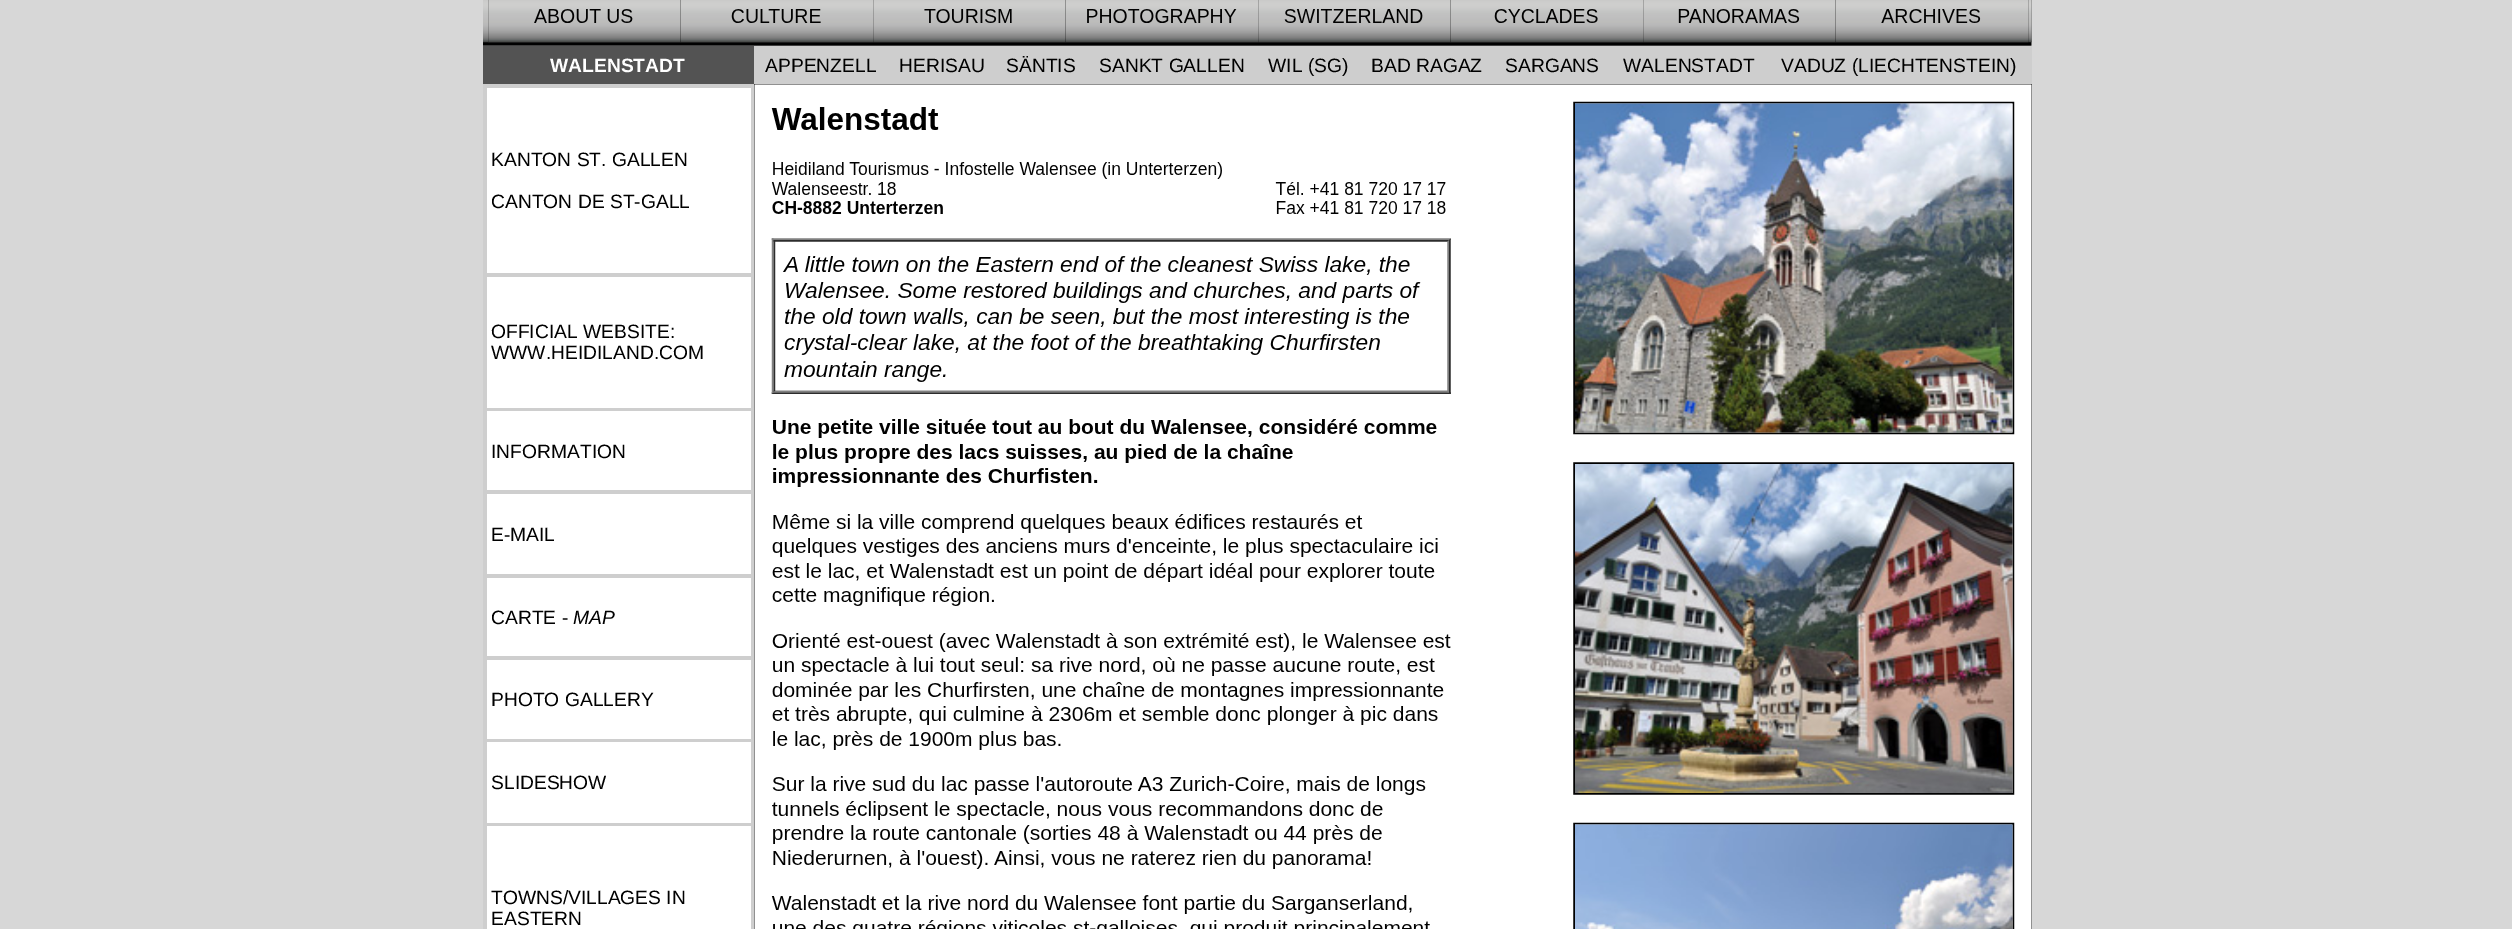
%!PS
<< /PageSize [2512 929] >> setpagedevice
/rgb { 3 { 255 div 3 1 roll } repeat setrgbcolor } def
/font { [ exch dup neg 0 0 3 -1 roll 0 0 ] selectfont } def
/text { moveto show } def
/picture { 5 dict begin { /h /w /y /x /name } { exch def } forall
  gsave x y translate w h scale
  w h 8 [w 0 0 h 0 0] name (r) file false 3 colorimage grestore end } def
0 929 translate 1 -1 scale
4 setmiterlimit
215 215 215 rgb
0 0 2512 929 rectfill
255 255 255 rgb
483 0 1549 46 rectfill
(img_01.rgb) 483 0 1549 46 picture
83 83 83 rgb
483 46 271 38 rectfill
206 206 206 rgb
483 84 271 845 rectfill
255 255 255 rgb
487 88 264 185 rectfill
487 277 264 131 rectfill
487 411 264 79 rectfill
487 494 264 80 rectfill
487 578 264 78 rectfill
487 660 264 79 rectfill
487 742 264 81 rectfill
487 826 264 103 rectfill
0 0 0 rgb
754 84 1278 845 rectfill
206 206 206 rgb
754 46 1278 38 rectfill
(img_02.rgb) 754 84 1278 845 picture
/LiberationSans-Bold 19.25 font
255 255 255 rgb
(WALENSTADT) 550 72 text
/LiberationSans-Regular 19.25 font
0 0 0 rgb
(KANTON ST. GALLEN) 491 166 text
(CANTON DE ST-GALL) 491 208 text
(OFFICIAL WEBSITE:) 491 338 text
(WWW.HEIDILAND.COM) 491 359 text
(INFORMATION) 491 458 text
(E-MAIL) 491 541 text
(CARTE -) 491 624 text
/LiberationSans-Italic 19.25 font
(MAP) 573 624 text
/LiberationSans-Regular 19.25 font
(PHOTO GALLERY) 491 706 text
(SLIDESHOW) 491 789 text
(TOWNS/VILLAGES IN) 491 904 text
(EASTERN) 491 925 text
(APPENZELL) 765 72 text
(HERISAU) 899 72 text
(SÄNTIS) 1006 72 text
(SANKT GALLEN) 1099 72 text
(WIL \(SG\)) 1268 72 text
(BAD RAGAZ) 1371 72 text
(SARGANS) 1505 72 text
(WALENSTADT) 1623 72 text
(VADUZ \(LIECHTENSTEIN\)) 1781 72 text
showpage
